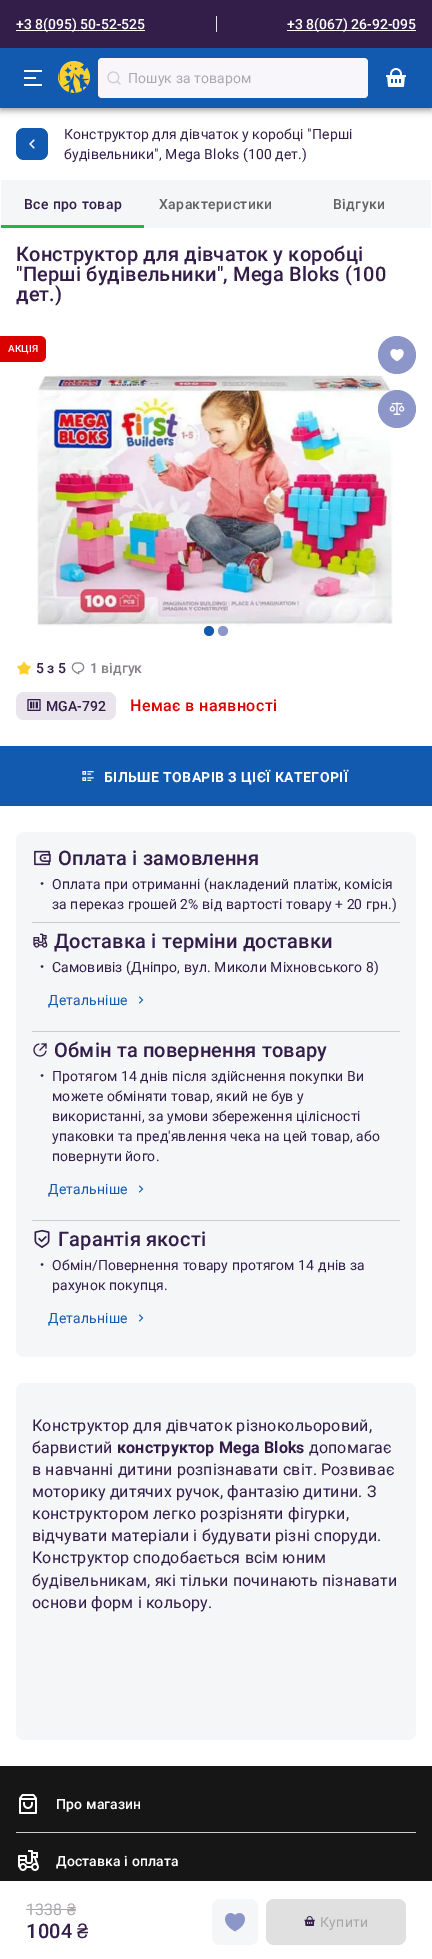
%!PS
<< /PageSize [432 1959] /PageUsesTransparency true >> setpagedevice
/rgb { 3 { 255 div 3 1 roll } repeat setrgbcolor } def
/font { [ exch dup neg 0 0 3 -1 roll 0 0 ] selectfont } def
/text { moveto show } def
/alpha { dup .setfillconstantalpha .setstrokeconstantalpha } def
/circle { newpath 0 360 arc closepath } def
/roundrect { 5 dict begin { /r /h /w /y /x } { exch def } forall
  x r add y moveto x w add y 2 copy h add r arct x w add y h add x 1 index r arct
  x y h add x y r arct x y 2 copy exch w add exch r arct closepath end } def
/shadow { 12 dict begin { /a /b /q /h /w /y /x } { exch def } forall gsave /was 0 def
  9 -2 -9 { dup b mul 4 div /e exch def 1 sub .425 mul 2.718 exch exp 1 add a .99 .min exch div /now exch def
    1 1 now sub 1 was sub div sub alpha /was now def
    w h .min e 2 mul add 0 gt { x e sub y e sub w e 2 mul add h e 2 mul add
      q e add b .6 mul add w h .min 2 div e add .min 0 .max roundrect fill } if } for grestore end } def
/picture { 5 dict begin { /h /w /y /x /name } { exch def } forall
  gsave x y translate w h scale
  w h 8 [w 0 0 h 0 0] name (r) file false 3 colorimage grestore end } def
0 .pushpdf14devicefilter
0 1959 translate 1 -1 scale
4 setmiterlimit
255 255 255 rgb
0 0 432 1959 rectfill
0 0 0 rgb
0 1 432 108 0 5 0.12 shadow
0 4 432 108 0 2.5 0.14 shadow
1 3 430 106 0 2 0.2 shadow
17 90 176 rgb
0 48 432 60 rectfill
51 29 73 rgb
0 0 432 48 rectfill
255 255 255 rgb
16 30 129 1 rectfill
234 229 236 rgb
216 16 1 16 rectfill
255 255 255 rgb
287 30 129 1 rectfill
(img_01.rgb) 24 70 18 16 picture
(img_02.rgb) 58 61 32 32 picture
248 246 250 rgb
98 58 270 40 4 roundrect fill
(img_03.rgb) 107 71 14 14 picture
(img_04.rgb) 386 68 20 19 picture
17 90 176 rgb
16 128 32 32 8 roundrect fill
(img_05.rgb) 29 139 6 10 picture
244 246 248 rgb
1 180 430 48 rectfill
31 186 65 rgb
1 225 143 3 rectfill
219 1 1 rgb
0 336 moveto 40 0 rlineto 3.5 0 6 2.5 6 6 rcurveto 0 14 rlineto 0 3.5 -2.5 6 -6 6 rcurveto -40 0 rlineto closepath fill
(img_08.rgb) 37 373 356 254 picture
140 150 200 rgb
397 355 19 circle fill
(img_06.rgb) 390 349 14 13 picture
397 409 19 circle fill
(img_07.rgb) 389 402 16 13 picture
17 90 176 rgb
209 631 5 circle fill
140 150 200 rgb
223 631 5 circle fill
(img_09.rgb) 17 661 14 14 picture
(img_10.rgb) 71 662 14 13 picture
234 229 236 rgb
16 692 100 28 8 roundrect fill
(img_11.rgb) 27 699 14 12 picture
17 90 176 rgb
0 746 432 60 rectfill
(img_12.rgb) 82 771 12 10 picture
244 246 248 rgb
16 832 400 525 8 roundrect fill
207 202 209 rgb
32 922 368 1 rectfill
(img_13.rgb) 34 850 17 16 picture
32 1031 368 1 rectfill
(img_14.rgb) 33 933 15 15 picture
(img_15.rgb) 138 996 6 8 picture
32 1220 368 1 rectfill
(img_16.rgb) 33 1043 14 14 picture
(img_15.rgb) 138 1185 6 8 picture
(img_17.rgb) 34 1229 16 19 picture
(img_15.rgb) 138 1314 6 8 picture
244 246 248 rgb
16 1383 400 357 8 roundrect fill
172 166 175 rgb
26 1909 50 1 rectfill
244 246 248 rgb
212 1899 46 46 8 roundrect fill
(img_18.rgb) 225 1913 20 19 picture
224 224 224 rgb
266 1899 140 46 8 roundrect fill
(img_19.rgb) 304 1916 11 10 picture
22 22 22 rgb
0 1766 432 115 rectfill
(img_20.rgb) 19 1794 18 20 picture
207 202 209 rgb
16 1832 400 1 rectfill
(img_21.rgb) 18 1850 21 21 picture
/Roboto-Medium 14 font
255 255 255 rgb
(+3 8\(095\) 50-52-525) 16 29 text
(+3 8\(067\) 26-92-095) 287 29 text
/Roboto-Regular 14 font
172 166 175 rgb
128 83 moveto 0.1 0 (Пошук за товаром) ashow
51 29 73 rgb
64 139 moveto 0.1 0 (Конструктор для дівчаток у коробці "Перші) ashow
64 159 moveto 0.1 0 (будівельники", Mega Bloks \(100 дет.\)) ashow
/Roboto-Medium 14 font
24 209 moveto 0.4 0 (Все про товар) ashow
98 98 99 rgb
159 209 moveto 0.4 0 (Характеристики) ashow
333 209 moveto 0.4 0 (Відгуки) ashow
/Roboto-Medium 20 font
51 29 73 rgb
16 261 moveto 0.15 0 (Конструктор для дівчаток у коробці) ashow
16 281 moveto 0.15 0 ("Перші будівельники", Mega Bloks \(100) ashow
16 301 moveto 0.15 0 (дет.\)) ashow
/Roboto-Medium 10 font
255 255 255 rgb
8 352 moveto 0.15 0 (АКЦІЯ) ashow
/Roboto-Medium 14 font
51 29 73 rgb
(5 з 5) 36 673 text
134 128 137 rgb
(1 відгук) 90 673 text
51 29 73 rgb
(MGA-792) 46 711 text
/Roboto-Medium 16 font
219 1 1 rgb
130 711 moveto 0.4 0 (Немає в наявності) ashow
/Roboto-Bold 14 font
255 255 255 rgb
104 782 moveto 0.4 0 (БІЛЬШЕ ТОВАРІВ З ЦІЄЇ КАТЕГОРІЇ) ashow
/Roboto-Medium 20 font
51 29 73 rgb
58 865 moveto 0.15 0 (Оплата і замовлення) ashow
/Roboto-Regular 24 font
39 892 moveto 0.1 0 (·) ashow
/Roboto-Regular 14 font
52 889 moveto 0.1 0 (Оплата при отриманні \(накладений платіж, комісія) ashow
52 909 moveto 0.1 0 (за переказ грошей 2% від вартості товару + 20 грн.\)) ashow
/Roboto-Medium 20 font
54 948 moveto 0.15 0 (Доставка і терміни доставки) ashow
/Roboto-Regular 24 font
39 975 moveto 0.1 0 (·) ashow
/Roboto-Regular 14 font
52 972 moveto 0.1 0 (Самовивіз \(Дніпро, вул. Миколи Міхновського 8\)) ashow
17 90 176 rgb
48 1005 moveto 0.15 0 (Детальніше) ashow
/Roboto-Medium 20 font
51 29 73 rgb
54 1057 moveto 0.15 0 (Обмін та повернення товару) ashow
/Roboto-Regular 24 font
39 1084 moveto 0.1 0 (·) ashow
/Roboto-Regular 14 font
52 1081 moveto 0.1 0 (Протягом 14 днів після здійснення покупки Ви) ashow
52 1101 moveto 0.1 0 (можете обміняти товар, який не був у) ashow
52 1121 moveto 0.1 0 (використанні, за умови збереження цілісності) ashow
52 1141 moveto 0.1 0 (упаковки та пред'явлення чека на цей товар, або) ashow
52 1161 moveto 0.1 0 (повернути його.) ashow
17 90 176 rgb
48 1194 moveto 0.15 0 (Детальніше) ashow
/Roboto-Medium 20 font
51 29 73 rgb
58 1246 moveto 0.15 0 (Гарантія якості) ashow
/Roboto-Regular 24 font
39 1273 moveto 0.1 0 (·) ashow
/Roboto-Regular 14 font
52 1270 moveto 0.1 0 (Обмін/Повернення товару протягом 14 днів за) ashow
52 1290 moveto 0.1 0 (рахунок покупця.) ashow
17 90 176 rgb
48 1323 moveto 0.15 0 (Детальніше) ashow
/Roboto-Regular 16 font
51 29 73 rgb
32 1431 moveto 0.15 0 (Конструктор для дівчаток різнокольоровий,) ashow
32 1453 moveto 0.15 0 (барвистий) ashow
/Roboto-Bold 16 font
117 1453 moveto 0.15 0 (конструктор Mega Bloks) ashow
/Roboto-Regular 16 font
309 1453 moveto 0.15 0 (допомагає) ashow
32 1475 moveto 0.15 0 (в навчанні дитини розпізнавати світ. Розвиває) ashow
32 1497 moveto 0.15 0 (моторику дитячих ручок, фантазію дитини. З) ashow
32 1519 moveto 0.15 0 (конструктором легко розрізняти фігурки,) ashow
32 1541 moveto 0.15 0 (відчувати матеріали і будувати різні споруди.) ashow
32 1563 moveto 0.15 0 (Конструктор сподобається всім юним) ashow
32 1586 moveto 0.15 0 (будівельникам, які тільки починають пізнавати) ashow
32 1608 moveto 0.15 0 (основи форм і кольору.) ashow
172 166 175 rgb
26 1915 moveto 0.15 0 (1338) ashow
/LiberationSans-Regular 16 font
67 1915 moveto 0.15 0 (₴) ashow
/Roboto-Medium 20 font
51 29 73 rgb
26 1938 moveto 0.15 0 (1004) ashow
/LiberationSans-Regular 20 font
77 1938 moveto 0.15 0 (₴) ashow
/Roboto-Regular 14 font
166 166 166 rgb
320 1927 moveto 0.4 0 (Купити) ashow
/Roboto-Medium 14 font
255 255 255 rgb
56 1809 moveto 0.15 0 (Про магазин) ashow
56 1866 moveto 0.15 0 (Доставка і оплата) ashow
.poppdf14devicefilter showpage
